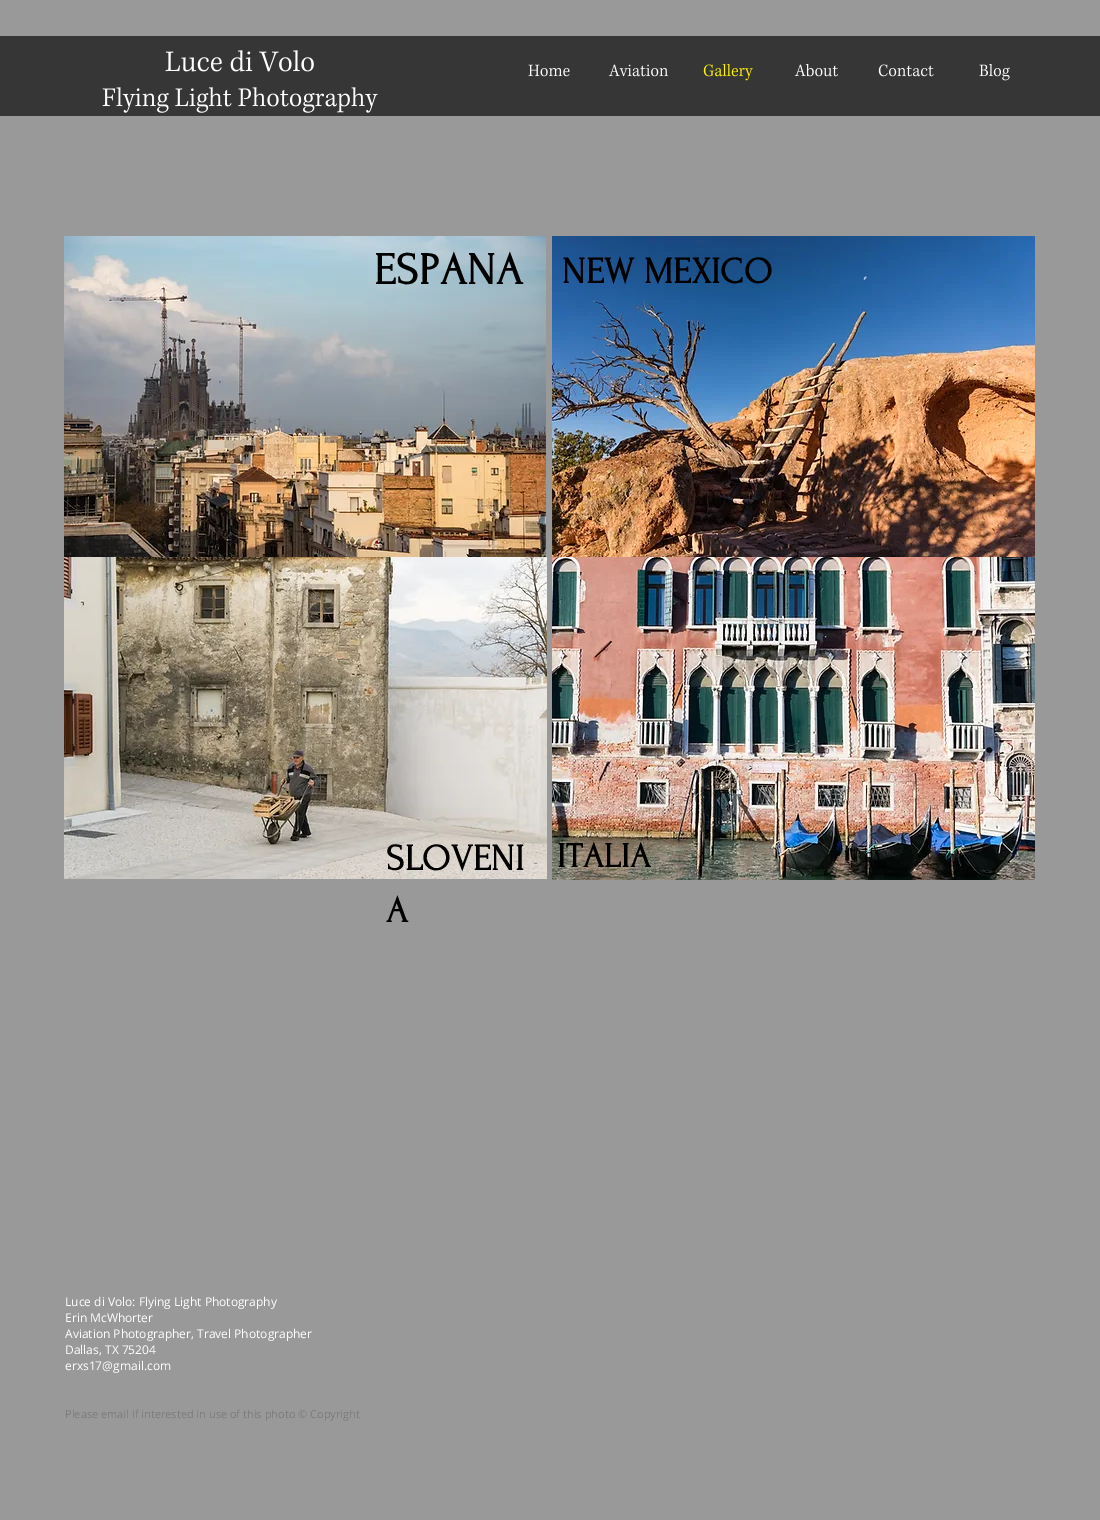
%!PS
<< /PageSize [1100 1520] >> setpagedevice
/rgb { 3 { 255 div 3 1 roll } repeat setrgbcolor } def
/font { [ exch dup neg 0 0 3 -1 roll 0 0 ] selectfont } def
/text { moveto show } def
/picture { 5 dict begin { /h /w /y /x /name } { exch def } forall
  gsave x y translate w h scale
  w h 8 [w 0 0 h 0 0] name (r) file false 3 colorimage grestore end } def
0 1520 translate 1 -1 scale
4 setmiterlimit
153 153 153 rgb
0 0 1100 1520 rectfill
54 54 54 rgb
0 36 1100 80 rectfill
(img_01.rgb) 165 50 149 22 picture
(img_02.rgb) 102 87 276 26 picture
(img_03.rgb) 528 64 42 13 picture
(img_04.rgb) 608 64 61 13 picture
(img_05.rgb) 703 64 50 17 picture
(img_06.rgb) 794 64 44 13 picture
(img_07.rgb) 878 64 56 13 picture
(img_08.rgb) 979 64 31 17 picture
(img_09.rgb) 64 236 482 321 picture
(img_10.rgb) 552 236 483 321 picture
(img_11.rgb) 64 557 483 322 picture
(img_12.rgb) 552 557 483 323 picture
/Forum-Bold 45 font
0 0 0 rgb
374 284 moveto 0.5 0 (ESPANA) ashow
/Forum-Bold 37 font
562 283 moveto 0.4 0 (NEW MEXICO) ashow
386 870 moveto 0.4 0 (SLOVENI) ashow
386 922 moveto 0.4 0 (A) ashow
/Forum-Bold 35 font
557 867 moveto 0.5 0 (ITALIA) ashow
/OpenSans-Regular 12 font
255 255 255 rgb
(Luce di Volo: Flying Light Photography) 65 1306 text
(Erin McWhorter) 65 1322 text
(Aviation Photographer, Travel Photographer) 65 1338 text
(Dallas, TX 75204) 65 1354 text
(erxs17@gmail.com) 65 1370 text
/OpenSans-Regular 11 font
124 124 124 rgb
(Please email if interested in use of this photo © Copyright) 65 1418 text
showpage
